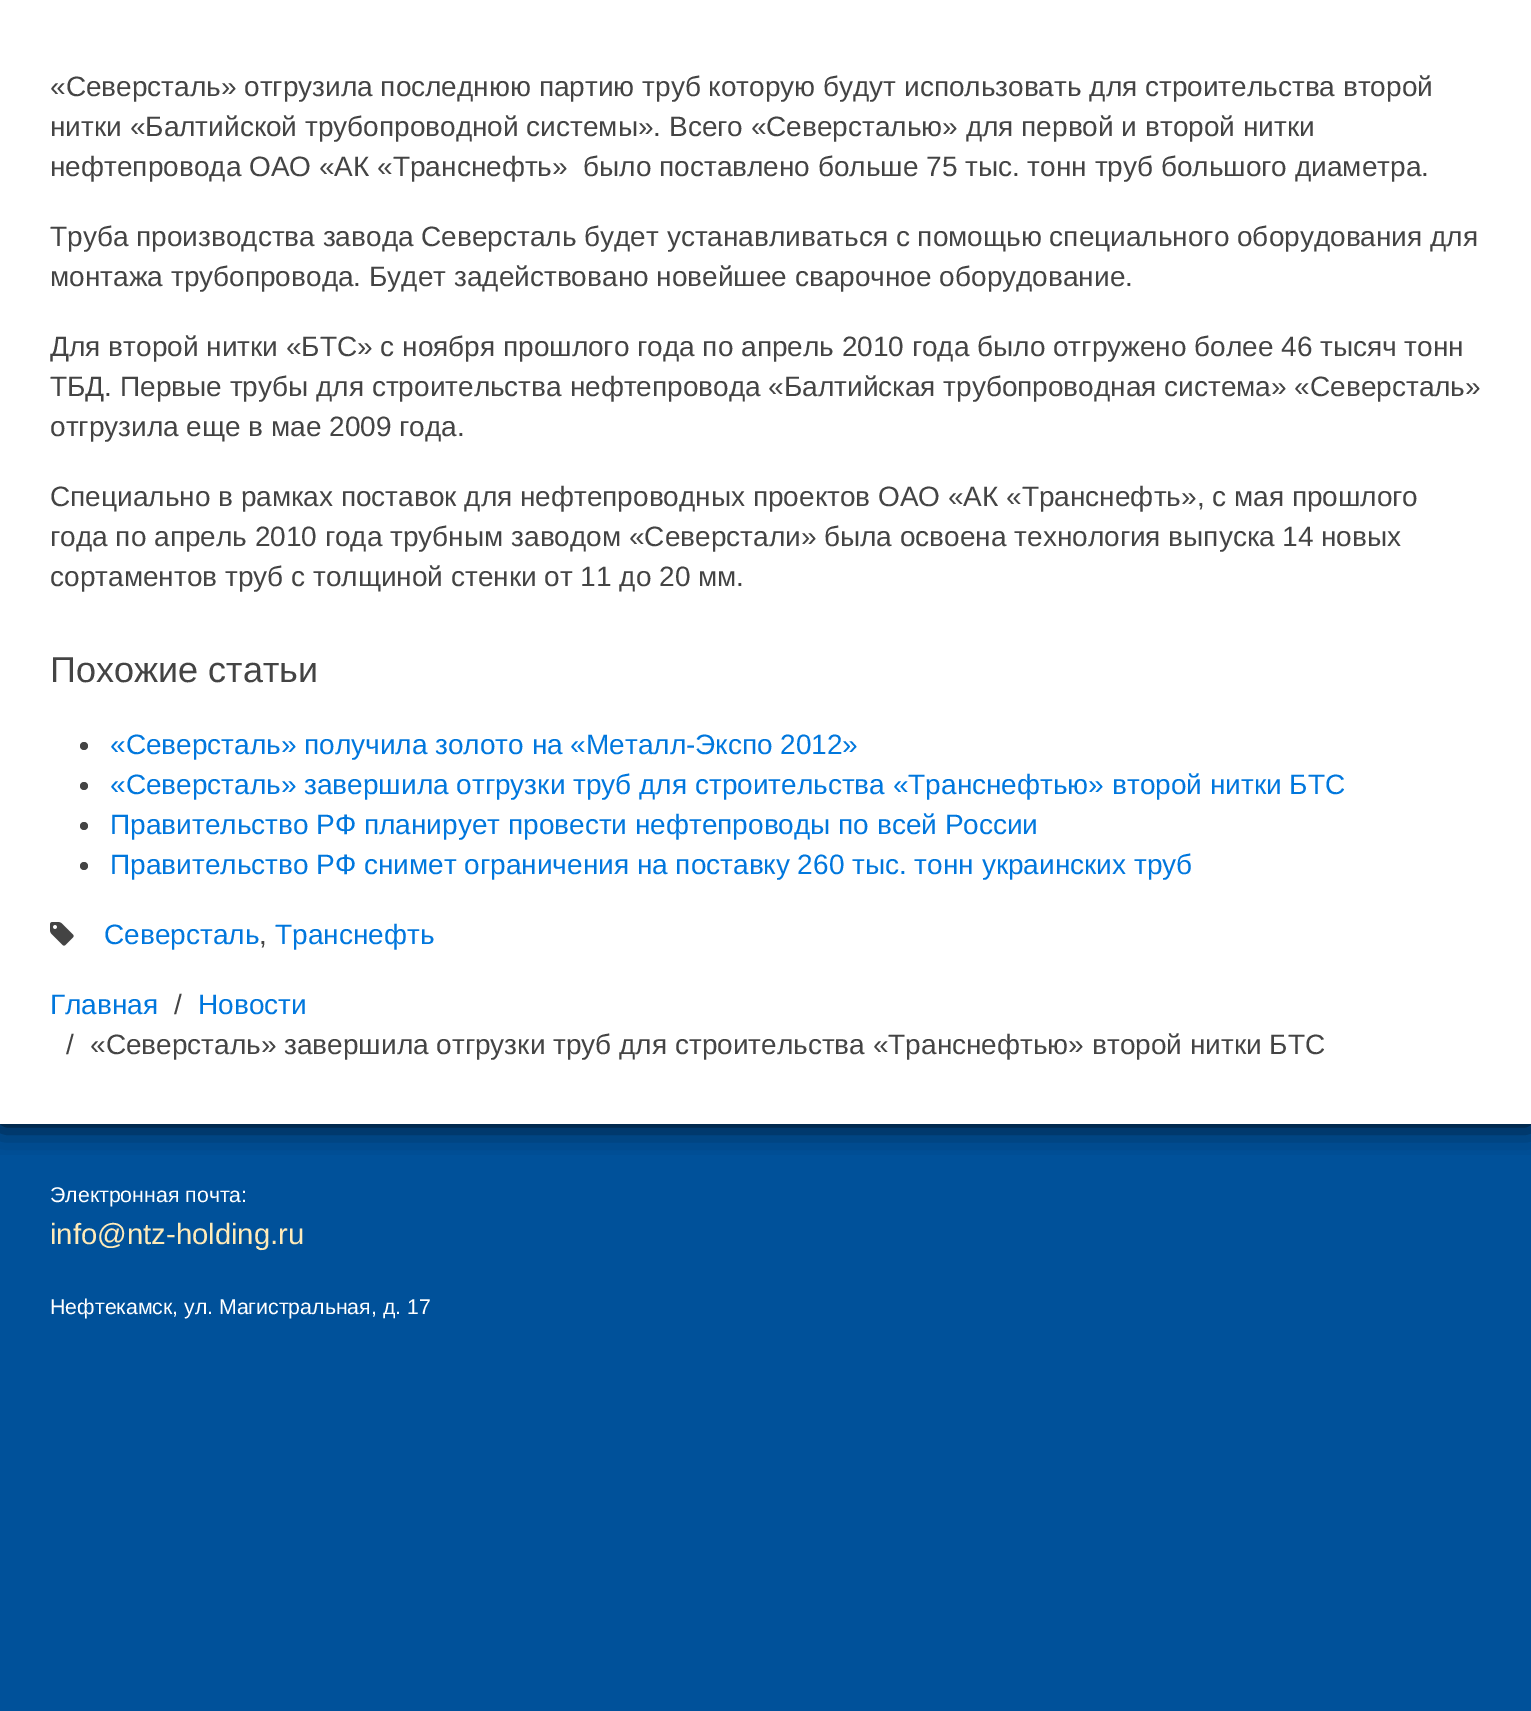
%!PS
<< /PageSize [1531 1711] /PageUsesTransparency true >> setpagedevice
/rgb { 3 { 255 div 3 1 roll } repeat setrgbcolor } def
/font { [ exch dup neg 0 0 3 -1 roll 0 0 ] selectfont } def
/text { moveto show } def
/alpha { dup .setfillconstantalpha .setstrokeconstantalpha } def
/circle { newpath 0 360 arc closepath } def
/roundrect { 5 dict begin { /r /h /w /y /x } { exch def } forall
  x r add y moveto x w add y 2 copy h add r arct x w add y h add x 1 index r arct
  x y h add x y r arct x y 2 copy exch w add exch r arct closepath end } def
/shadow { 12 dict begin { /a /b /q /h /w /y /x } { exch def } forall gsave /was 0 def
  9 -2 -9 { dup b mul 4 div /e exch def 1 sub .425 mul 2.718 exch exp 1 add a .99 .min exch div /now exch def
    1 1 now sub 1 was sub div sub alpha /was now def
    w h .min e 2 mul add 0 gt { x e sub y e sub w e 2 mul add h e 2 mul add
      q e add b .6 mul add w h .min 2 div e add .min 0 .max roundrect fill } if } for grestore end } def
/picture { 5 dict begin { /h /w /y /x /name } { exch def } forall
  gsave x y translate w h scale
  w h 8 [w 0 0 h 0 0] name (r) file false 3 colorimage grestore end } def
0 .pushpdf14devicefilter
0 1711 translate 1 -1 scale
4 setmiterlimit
255 255 255 rgb
0 0 1531 1711 rectfill
0 81 154 rgb
0 1124 1531 587 rectfill
gsave
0 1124 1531 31 rectclip
0 0 0 rgb
0 -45 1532 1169 0 15 1 shadow
grestore
68 68 68 rgb
84 746 4 circle fill
84 786 4 circle fill
84 826 4 circle fill
84 866 4 circle fill
(img_01.rgb) 50 922 24 24 picture
/LiberationSans-Regular 28 font
(«Северсталь» отгрузила последнюю партию труб которую будут использовать для строительства второй) 50 96 text
(нитки «Балтийской трубопроводной системы». Всего «Северсталью» для первой и второй нитки) 50 136 text
(нефтепровода ОАО «АК «Транснефть»  было поставлено больше 75 тыс. тонн труб большого диаметра.) 50 176 text
(Труба производства завода Северсталь будет устанавливаться с помощью специального оборудования для) 50 246 text
(монтажа трубопровода. Будет задействовано новейшее сварочное оборудование.) 50 286 text
(Для второй нитки «БТС» с ноября прошлого года по апрель 2010 года было отгружено более 46 тысяч тонн) 50 356 text
(ТБД. Первые трубы для строительства нефтепровода «Балтийская трубопроводная система» «Северсталь») 50 396 text
(отгрузила еще в мае 2009 года.) 50 436 text
(Специально в рамках поставок для нефтепроводных проектов ОАО «АК «Транснефть», с мая прошлого) 50 506 text
(года по апрель 2010 года трубным заводом «Северстали» была освоена технология выпуска 14 новых) 50 546 text
(сортаментов труб с толщиной стенки от 11 до 20 мм.) 50 586 text
/LiberationSans-Regular 36 font
(Похожие статьи) 50 682 text
/LiberationSans-Regular 28 font
0 119 221 rgb
(«Северсталь» получила золото на «Металл-Экспо 2012») 110 754 text
(«Северсталь» завершила отгрузки труб для строительства «Транснефтью» второй нитки БТС) 110 794 text
(Правительство РФ планирует провести нефтепроводы по всей России) 110 834 text
(Правительство РФ снимет ограничения на поставку 260 тыс. тонн украинских труб) 110 874 text
(Северсталь) 104 944 text
68 68 68 rgb
(,) 259 944 text
0 119 221 rgb
(Транснефть) 275 944 text
(Главная) 50 1014 text
68 68 68 rgb
(/) 174 1014 text
0 119 221 rgb
(Новости) 198 1014 text
68 68 68 rgb
(/) 66 1054 text
(«Северсталь» завершила отгрузки труб для строительства «Транснефтью» второй нитки БТС) 90 1054 text
/LiberationSans-Regular 21.3 font
255 255 255 rgb
(Электронная почта:) 50 1202 text
/LiberationSans-Regular 29.25 font
254 234 184 rgb
(info@ntz-holding.ru) 50 1244 text
/LiberationSans-Regular 21.3 font
255 255 255 rgb
(Нефтекамск, ул. Магистральная, д. 17) 50 1314 text
.poppdf14devicefilter showpage
